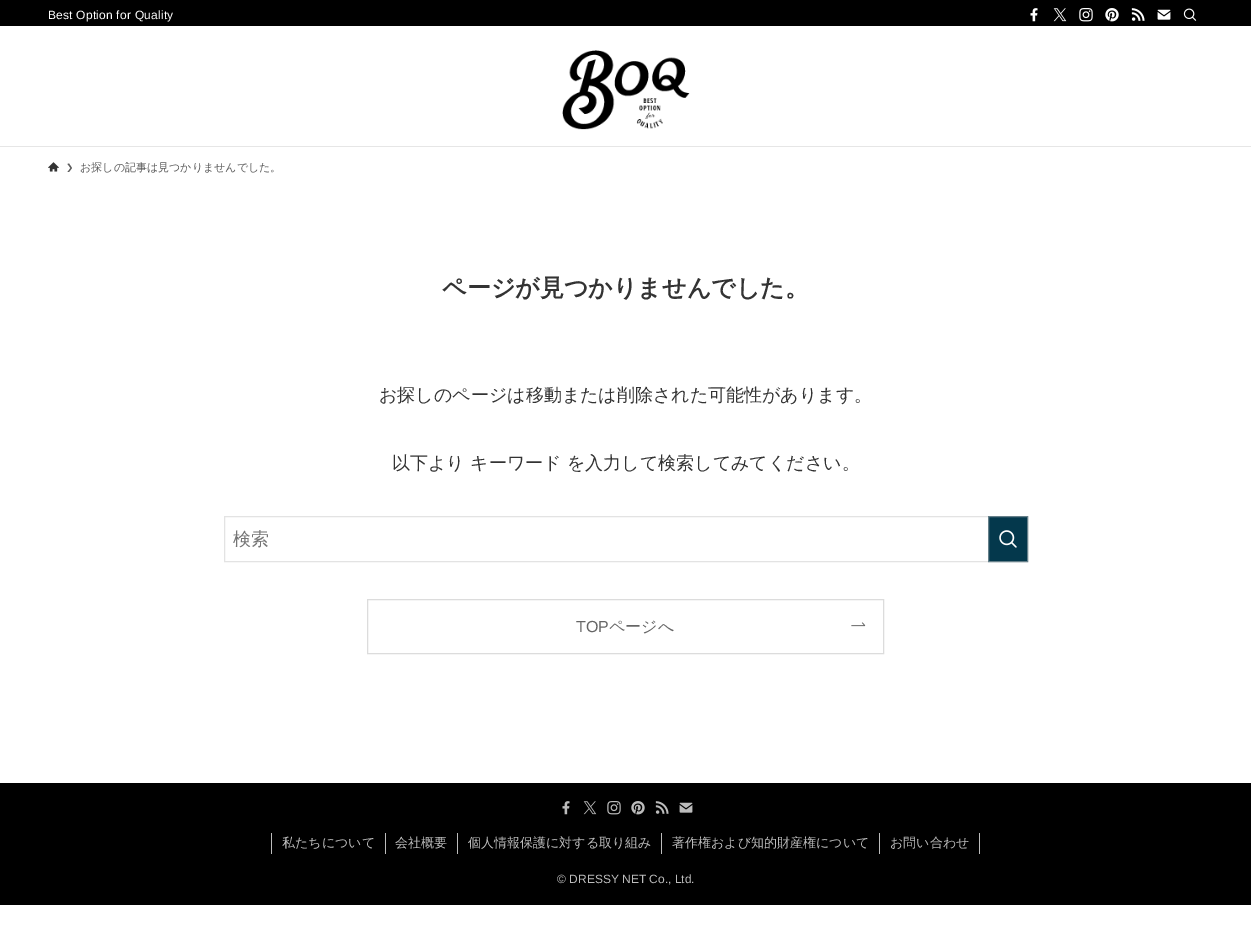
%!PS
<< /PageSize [1251 944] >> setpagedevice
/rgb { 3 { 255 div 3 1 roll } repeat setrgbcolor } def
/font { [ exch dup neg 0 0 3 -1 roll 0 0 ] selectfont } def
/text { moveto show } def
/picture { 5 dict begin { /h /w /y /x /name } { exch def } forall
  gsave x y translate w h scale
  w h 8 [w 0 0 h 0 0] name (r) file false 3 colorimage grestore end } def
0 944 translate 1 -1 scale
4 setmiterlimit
255 255 255 rgb
0 0 1251 944 rectfill
0 0 0 rgb
0 0 1251 26 rectfill
230 230 230 rgb
0 146 1251 1 rectfill
(img_01.rgb) 1030 8 8 14 picture
(img_02.rgb) 1053 8 14 14 picture
(img_03.rgb) 1079 8 14 14 picture
(img_04.rgb) 1105 8 14 14 picture
(img_05.rgb) 1131 8 14 13 picture
(img_06.rgb) 1157 9 14 11 picture
(img_07.rgb) 1183 8 14 13 picture
(img_08.rgb) 562 50 128 80 picture
(img_09.rgb) 48 162 11 10 picture
92 92 92 rgb
69 163.5 moveto -1.5 0.5 rlineto 3 4 rlineto -3 4 rlineto 1.5 0 rlineto 3 -4 rlineto closepath fill
227 227 227 rgb
224.5 516.5 803 45 rectstroke
4 56 76 rgb
988.5 516.5 moveto 39 0 rlineto 0 45 rlineto -39 0 rlineto closepath gsave fill grestore
102 128 138 rgb
stroke
(img_10.rgb) 999 530 18 18 picture
220 220 220 rgb
367.5 599.5 516 54 rectstroke
(img_11.rgb) 851 622 15 5 picture
0 0 0 rgb
0 783 1251 122 rectfill
(img_12.rgb) 562 801 8 14 picture
(img_13.rgb) 583 801 14 14 picture
(img_14.rgb) 607 801 14 14 picture
(img_15.rgb) 631 801 14 14 picture
(img_16.rgb) 655 801 14 13 picture
(img_17.rgb) 679 802 14 11 picture
188 188 188 rgb
385 833 1 21 rectfill
271 833 1 21 rectfill
457 833 1 21 rectfill
661 833 1 21 rectfill
879 833 1 21 rectfill
979 833 1 21 rectfill
/LiberationSans-Regular 12 font
255 255 255 rgb
48 19 moveto 0.2 0 (Best Option for Quality) ashow
/WenQuanYiZenHei-Medium 11 font
92 92 92 rgb
(お探しの記事は見つかりませんでした。) 80 171 text
/WenQuanYiZenHei-Bold 24 font
51 51 51 rgb
(ページが見つかりませんでした。) 442 296 text
/WenQuanYiZenHei-Medium 18 font
(お探しのページは移動または削除された可能性があります。) 379 401 text
(以下より キーワード を入力して検索してみてください。) 392 469 text
117 117 117 rgb
(検索) 233 545 text
/LiberationSans-Regular 16 font
102 102 102 rgb
(TOP) 576 632 text
/WenQuanYiZenHei-Medium 16 font
(ページへ) 609 632 text
/WenQuanYiZenHei-Medium 13 font
188 188 188 rgb
(私たちについて) 282 847 text
(会社概要) 395 847 text
(個人情報保護に対する取り組み) 468 847 text
(著作権および知的財産権について) 672 847 text
(お問い合わせ) 890 847 text
/LiberationSans-Regular 12 font
(© DRESSY NET Co., Ltd.) 557 883 text
showpage
